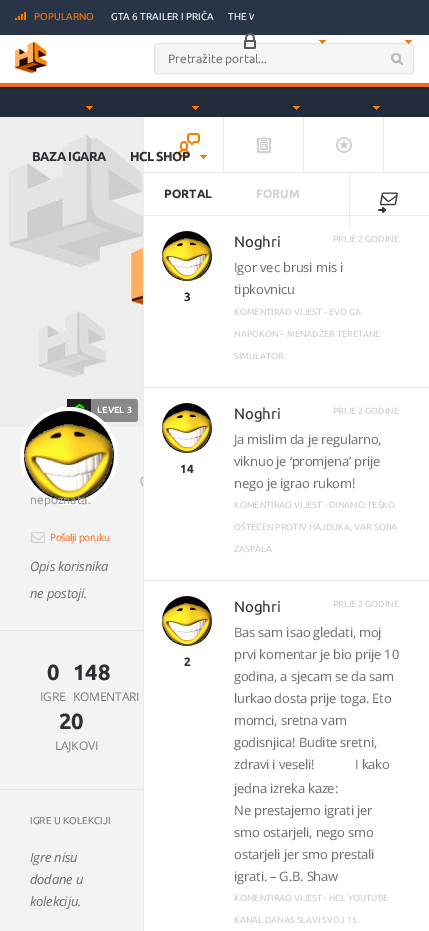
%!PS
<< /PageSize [429 931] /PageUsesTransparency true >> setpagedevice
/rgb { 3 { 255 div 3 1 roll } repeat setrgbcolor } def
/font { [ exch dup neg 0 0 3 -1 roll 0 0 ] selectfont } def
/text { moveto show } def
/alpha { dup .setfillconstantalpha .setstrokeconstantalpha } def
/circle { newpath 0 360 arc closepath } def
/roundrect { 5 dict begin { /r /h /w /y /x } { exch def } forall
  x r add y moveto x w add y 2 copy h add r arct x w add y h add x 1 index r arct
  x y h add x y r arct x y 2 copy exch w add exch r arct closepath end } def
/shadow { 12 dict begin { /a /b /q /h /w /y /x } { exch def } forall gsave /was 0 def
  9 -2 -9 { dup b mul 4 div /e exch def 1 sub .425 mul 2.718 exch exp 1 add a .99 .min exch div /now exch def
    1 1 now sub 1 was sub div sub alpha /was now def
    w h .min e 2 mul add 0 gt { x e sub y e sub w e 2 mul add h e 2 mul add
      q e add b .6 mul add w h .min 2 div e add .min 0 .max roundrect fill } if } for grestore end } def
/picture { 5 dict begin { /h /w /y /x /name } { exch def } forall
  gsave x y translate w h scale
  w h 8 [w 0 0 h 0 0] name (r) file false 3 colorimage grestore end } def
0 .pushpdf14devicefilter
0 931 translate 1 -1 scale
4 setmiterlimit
34 43 58 rgb
0 0 429 931 rectfill
0 0 0 rgb
0 36 429 52 0 0.5 0.3 shadow
41 52 70 rgb
0 0 429 35 rectfill
(img_01.rgb) 15 12 11 8 picture
255 255 255 rgb
0 35 429 48 rectfill
245 245 245 rgb
154.5 43.5 259 30 2.5 roundrect gsave fill grestore
228 228 228 rgb
stroke
(img_02.rgb) 244 33 12 16 picture
(img_03.rgb) 319 40 7 4 picture
(img_04.rgb) 405 40 7 4 picture
244 105 29 rgb
0 83 429 4 rectfill
(img_05.rgb) 15 42 32 31 picture
(img_06.rgb) 391 53 12 12 picture
(img_07.rgb) 86 106 7 4 picture
(img_07.rgb) 192 106 7 4 picture
(img_07.rgb) 293 106 7 4 picture
(img_07.rgb) 373 106 7 4 picture
255 255 255 rgb
144 117 285 814 rectfill
(img_08.rgb) 200 155 7 4 picture
243 243 243 rgb
0 427 143 504 rectfill
(img_09.rgb) 0 117 143 310 picture
4 255 0 rgb
75 404 9 5 rectfill
(img_10.rgb) 70 399 21 14 picture
31 31 32 rgb
67 399 3 9 rectfill
136 136 136 rgb
91 399 moveto 44 0 rlineto 1.5 0 3 1.5 3 3 rcurveto 0 17 rlineto 0 1.5 -1.5 3 -3 3 rcurveto -44 0 rlineto closepath fill
230 230 230 rgb
0 630 143 1 rectfill
255 255 255 rgb
69 456 49 circle fill
(img_12.rgb) 140 476 3 11 picture
(img_13.rgb) 31 532 14 11 picture
230 230 230 rgb
0 789 143 1 rectfill
234 234 234 rgb
143 117 1 814 rectfill
144 172 285 1 rectfill
223 117 1 55 rectfill
(img_14.rgb) 178 133 22 24 picture
303 117 1 55 rectfill
(img_15.rgb) 257 137 14 16 picture
383 117 1 55 rectfill
(img_16.rgb) 336 137 16 16 picture
144 215 285 1 rectfill
349 172 1 55 rectfill
(img_17.rgb) 378 192 20 21 picture
144 387 285 1 rectfill
(img_18.rgb) 162 231 50 50 picture
144 580 285 1 rectfill
(img_19.rgb) 162 403 50 50 picture
(img_20.rgb) 162 596 50 50 picture
/Ubuntu-Regular 10 font
248 122 0 rgb
(POPULARNO) 34 20 text
255 255 255 rgb
(GTA 6 TRAILER I PRIČA) 111 20 text
gsave
15 6 239 16 rectclip
(THE W) 228 20 text
grestore
/Ubuntu-Regular 12 font
117 117 117 rgb
(Pretražite portal...) 168 63 text
/Ubuntu-Bold 13 font
46 47 52 rgb
32 161 moveto -0.5 0 (BAZA IGARA) ashow
130 161 moveto -0.5 0 (HCL SHOP) ashow
/Ubuntu-Bold 9 font
255 255 255 rgb
(LEVEL 3) 97 413 text
(img_11.rgb) 24 411 90 90 picture
/Ubuntu-Regular 12 font
154 154 154 rgb
(nepoznata.) 30 504 text
/OpenSans-Regular 10 font
244 105 29 rgb
50 541 moveto -0.5 0 (Pošalji poruku) ashow
/OpenSans-Italic 13 font
107 107 107 rgb
30 571 moveto -0.2 0 (Opis korisnika) ashow
30 598 moveto -0.2 0 (ne postoji.) ashow
/Ubuntu-Bold 22 font
46 47 52 rgb
(0) 47 680 text
/OpenSans-Regular 12 font
124 124 126 rgb
40 701 moveto -0.2 0 (IGRE) ashow
/Ubuntu-Bold 22 font
46 47 52 rgb
(148) 73 680 text
/OpenSans-Regular 12 font
124 124 126 rgb
73 701 moveto -0.2 0 (KOMENTARI) ashow
/Ubuntu-Bold 22 font
46 47 52 rgb
(20) 59 729 text
/OpenSans-Regular 12 font
124 124 126 rgb
55 750 moveto -0.2 0 (LAJKOVI) ashow
/Ubuntu-Regular 10 font
(IGRE U KOLEKCIJI) 30 824 text
/OpenSans-Italic 13 font
107 107 107 rgb
30 862 moveto -0.2 0 (Igre nisu) ashow
30 884 moveto -0.2 0 (dodane u) ashow
30 906 moveto -0.2 0 (kolekciju.) ashow
/Ubuntu-Bold 12 font
46 47 52 rgb
(PORTAL) 164 198 text
209 209 209 rgb
(FORUM) 256 198 text
46 47 52 rgb
(3) 184 301 text
/Ubuntu-Regular 15 font
(Noghri) 234 247 text
/Ubuntu-Regular 9 font
203 203 203 rgb
(PRIJE 2 GODINE) 333 242 text
/OpenSans-Regular 13 font
107 107 107 rgb
234 272 moveto -0.2 0 (Igor vec brusi mis i) ashow
234 294 moveto -0.2 0 (tipkovnicu) ashow
/Ubuntu-Regular 9 font
203 203 203 rgb
(KOMENTIRAO VIJEST - EVO GA) 234 315 text
(NAPOKON – MENADŽER TERETANE) 234 337 text
(SIMULATOR) 234 359 text
/Ubuntu-Bold 12 font
46 47 52 rgb
(14) 180 473 text
/Ubuntu-Regular 15 font
(Noghri) 234 419 text
/Ubuntu-Regular 9 font
203 203 203 rgb
(PRIJE 2 GODINE) 333 414 text
/OpenSans-Regular 13 font
107 107 107 rgb
234 444 moveto -0.2 0 (Ja mislim da je regularno,) ashow
234 466 moveto -0.2 0 (viknuo je ‘promjena’ prije) ashow
234 488 moveto -0.2 0 (nego je igrao rukom!) ashow
/Ubuntu-Regular 9 font
203 203 203 rgb
(KOMENTIRAO VIJEST - DINAMO TEŠKO) 234 508 text
(OŠTEĆEN PROTIV HAJDUKA, VAR SOBA) 234 530 text
(ZASPALA) 234 552 text
/Ubuntu-Bold 12 font
46 47 52 rgb
(2) 184 666 text
/Ubuntu-Regular 15 font
(Noghri) 234 612 text
/Ubuntu-Regular 9 font
203 203 203 rgb
(PRIJE 2 GODINE) 333 607 text
/OpenSans-Regular 13 font
107 107 107 rgb
234 637 moveto -0.2 0 (Bas sam isao gledati, moj) ashow
234 659 moveto -0.2 0 (prvi komentar je bio prije 10) ashow
234 681 moveto -0.2 0 (godina, a sjecam se da sam) ashow
234 703 moveto -0.2 0 (lurkao dosta prije toga. Eto) ashow
234 725 moveto -0.2 0 (momci, sretna vam) ashow
234 747 moveto -0.2 0 (godisnjica! Budite sretni,) ashow
234 769 moveto -0.2 0 (zdravi i veseli!) ashow
355 769 moveto -0.2 0 (I kako) ashow
234 793 moveto -0.2 0 (jedna izreka kaze:) ashow
234 815 moveto -0.2 0 (Ne prestajemo igrati jer) ashow
234 837 moveto -0.2 0 (smo ostarjeli, nego smo) ashow
234 859 moveto -0.2 0 (ostarjeli jer smo prestali) ashow
234 881 moveto -0.2 0 (igrati. – G.B. Shaw) ashow
/Ubuntu-Regular 9 font
203 203 203 rgb
(KOMENTIRAO VIJEST - HCL YOUTUBE) 234 901 text
(KANAL DANAS SLAVI SVOJ 15.) 234 923 text
.poppdf14devicefilter showpage
